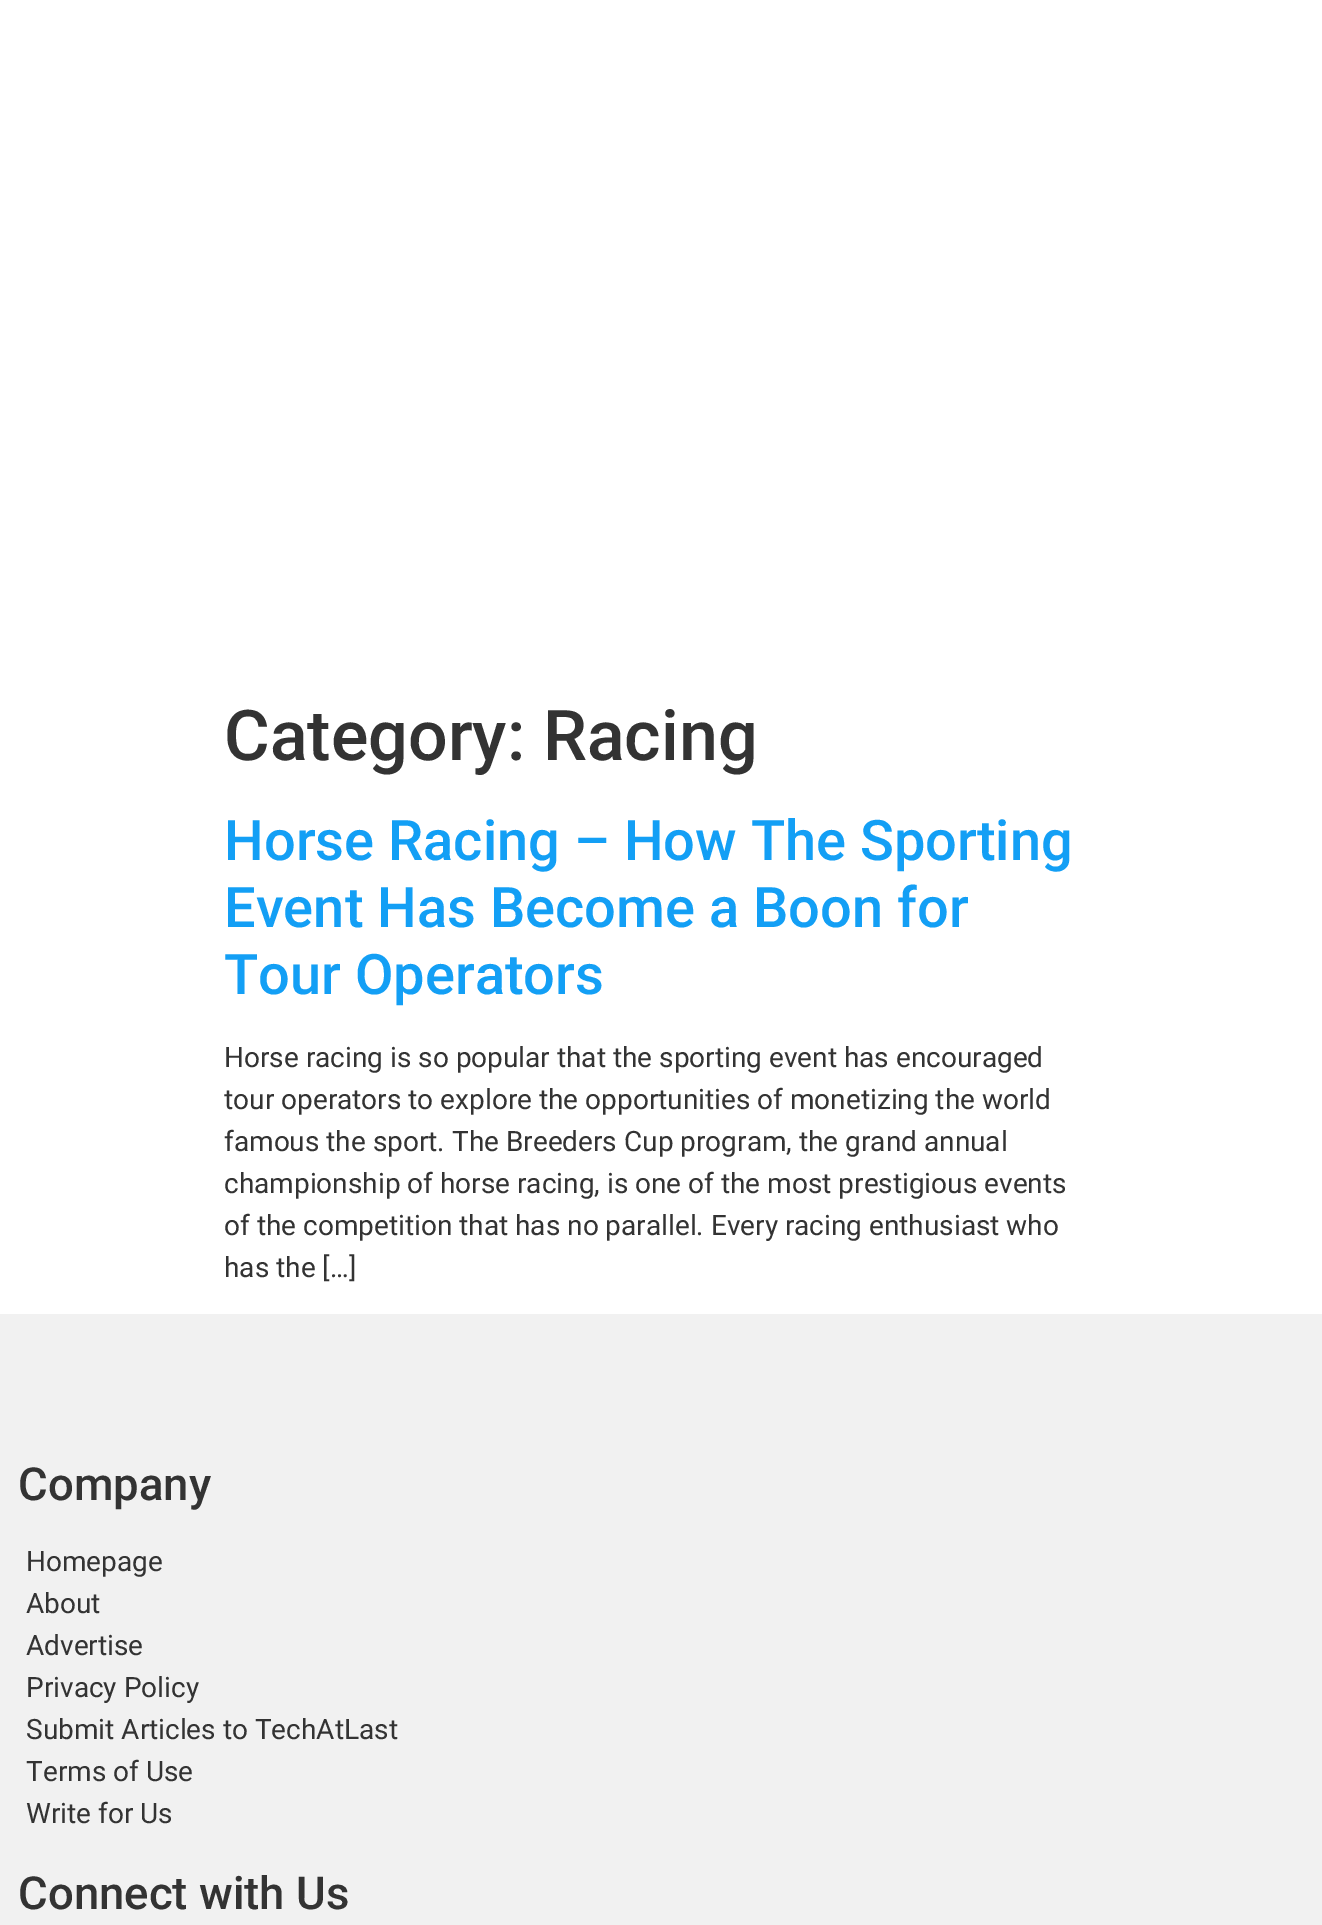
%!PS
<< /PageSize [1322 1925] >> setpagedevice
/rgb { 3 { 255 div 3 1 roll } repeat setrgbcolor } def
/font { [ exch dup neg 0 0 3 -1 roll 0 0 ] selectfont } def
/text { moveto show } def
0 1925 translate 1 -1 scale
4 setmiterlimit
255 255 255 rgb
0 0 1322 1925 rectfill
241 241 241 rgb
0 1314 1322 611 rectfill
/Roboto-Medium 70 font
51 51 51 rgb
(Category: Racing) 224 760 text
/Roboto-Medium 56 font
19 159 245 rgb
(Horse Racing – How The Sporting) 224 860 text
(Event Has Become a Boon for) 224 927 text
(Tour Operators) 224 994 text
/Roboto-Regular 28 font
51 51 51 rgb
(Horse racing is so popular that the sporting event has encouraged) 224 1067 text
(tour operators to explore the opportunities of monetizing the world) 224 1109 text
(famous the sport. The Breeders Cup program, the grand annual) 224 1151 text
(championship of horse racing, is one of the most prestigious events) 224 1193 text
(of the competition that has no parallel. Every racing enthusiast who) 224 1235 text
(has the […]) 224 1277 text
/Roboto-Medium 45.5 font
(Company) 18 1500 text
/Roboto-Regular 28 font
(Homepage) 26 1571 text
(About) 26 1613 text
(Advertise) 26 1655 text
(Privacy Policy) 26 1697 text
(Submit Articles to TechAtLast) 26 1739 text
(Terms of Use) 26 1781 text
(Write for Us) 26 1823 text
/Roboto-Medium 45.5 font
(Connect with Us) 18 1909 text
showpage
